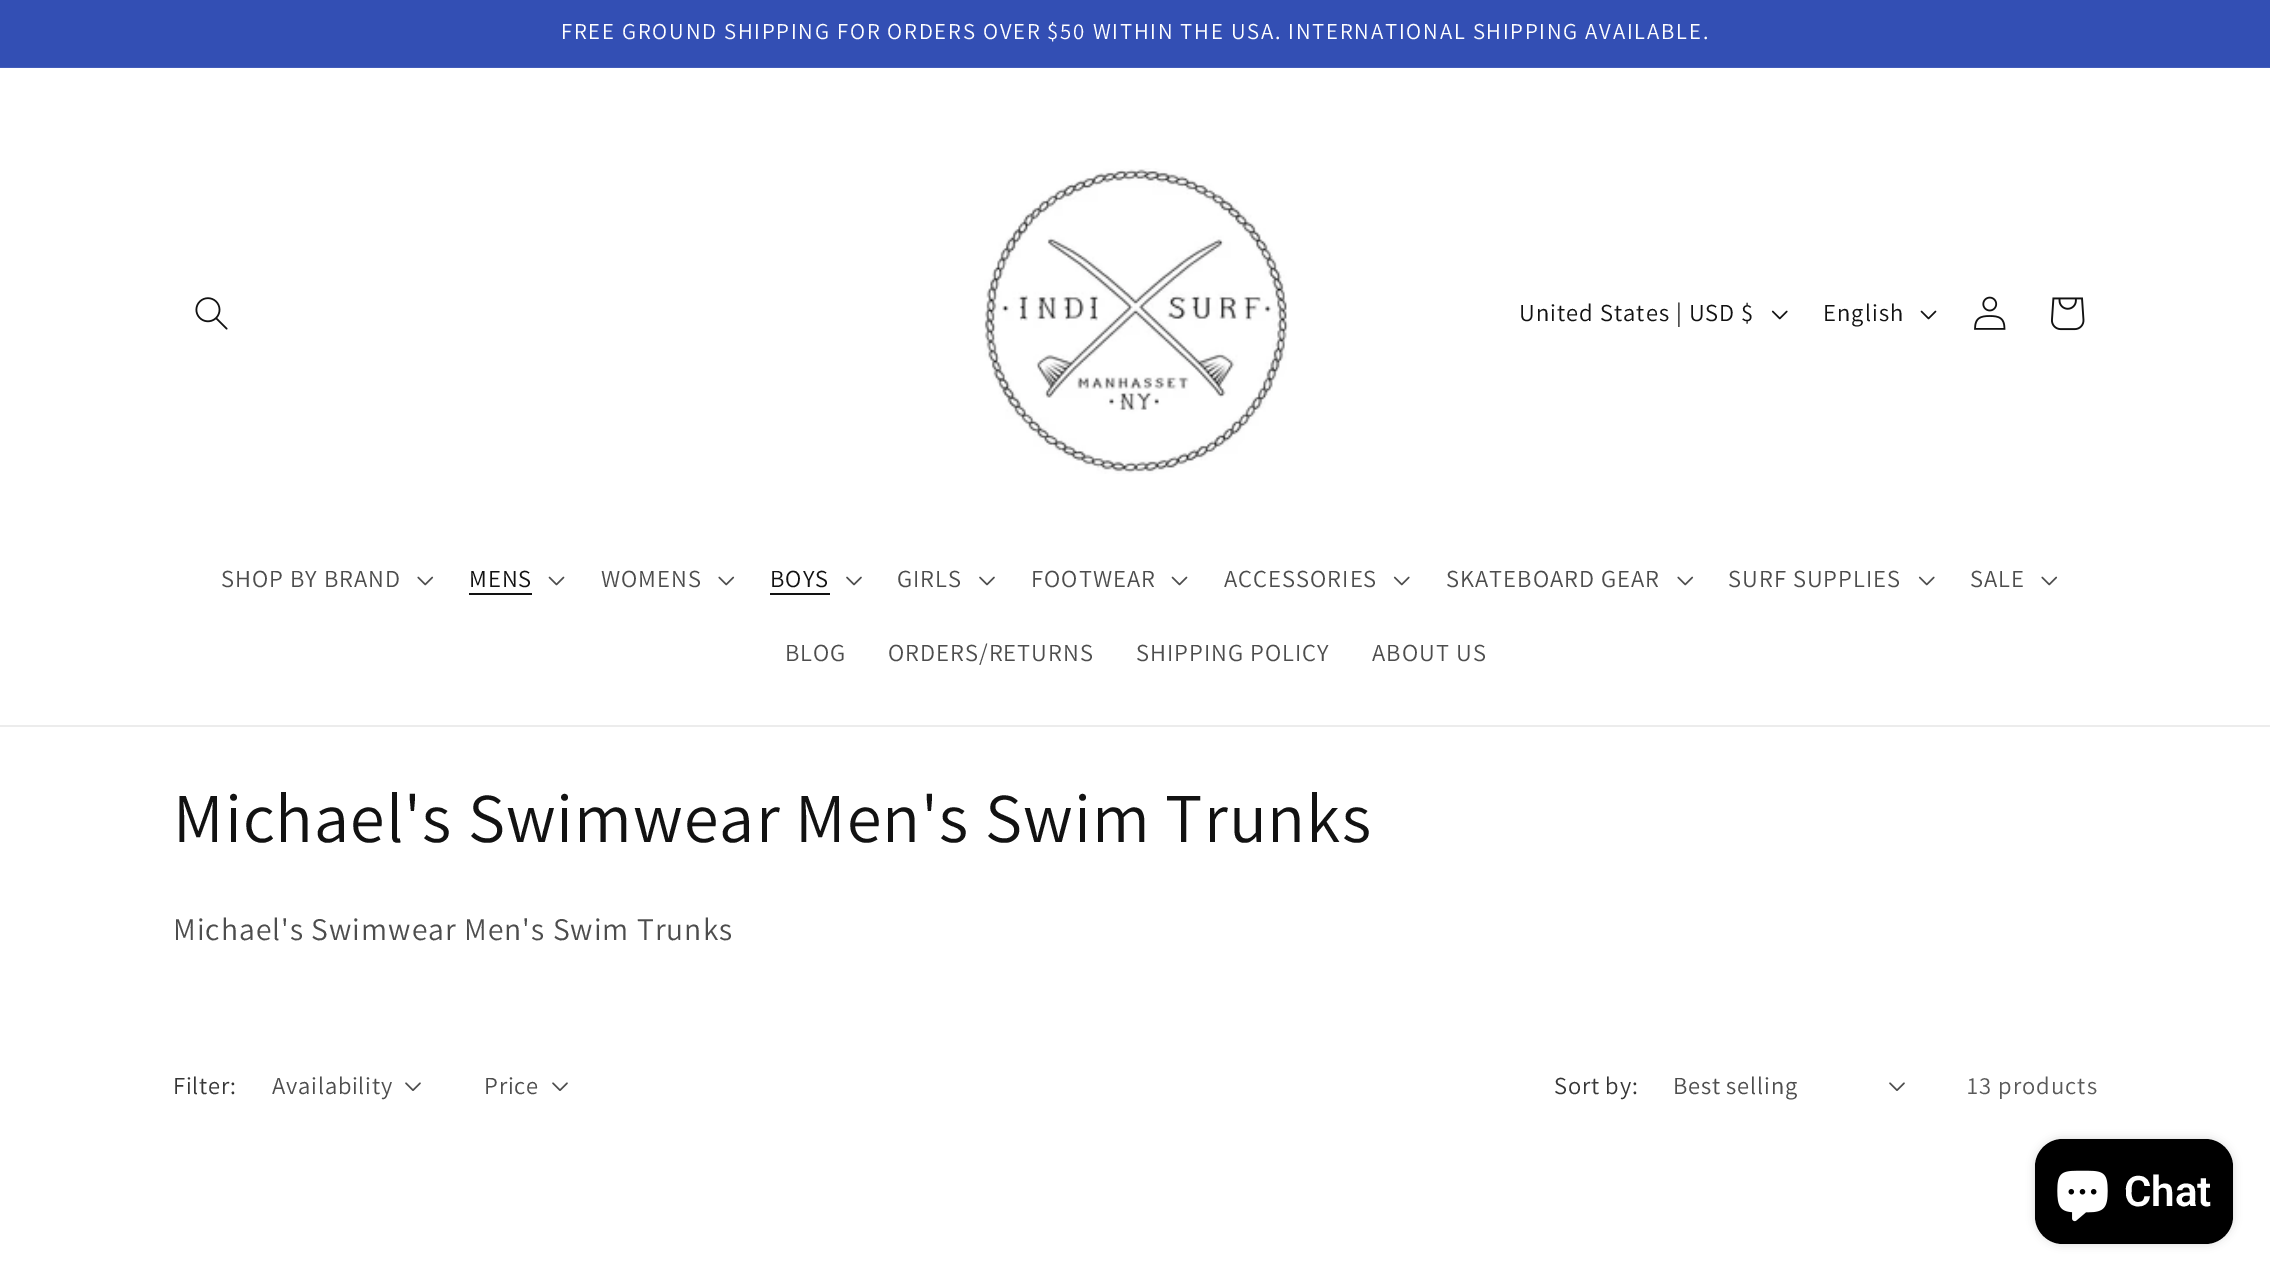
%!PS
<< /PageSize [2270 1280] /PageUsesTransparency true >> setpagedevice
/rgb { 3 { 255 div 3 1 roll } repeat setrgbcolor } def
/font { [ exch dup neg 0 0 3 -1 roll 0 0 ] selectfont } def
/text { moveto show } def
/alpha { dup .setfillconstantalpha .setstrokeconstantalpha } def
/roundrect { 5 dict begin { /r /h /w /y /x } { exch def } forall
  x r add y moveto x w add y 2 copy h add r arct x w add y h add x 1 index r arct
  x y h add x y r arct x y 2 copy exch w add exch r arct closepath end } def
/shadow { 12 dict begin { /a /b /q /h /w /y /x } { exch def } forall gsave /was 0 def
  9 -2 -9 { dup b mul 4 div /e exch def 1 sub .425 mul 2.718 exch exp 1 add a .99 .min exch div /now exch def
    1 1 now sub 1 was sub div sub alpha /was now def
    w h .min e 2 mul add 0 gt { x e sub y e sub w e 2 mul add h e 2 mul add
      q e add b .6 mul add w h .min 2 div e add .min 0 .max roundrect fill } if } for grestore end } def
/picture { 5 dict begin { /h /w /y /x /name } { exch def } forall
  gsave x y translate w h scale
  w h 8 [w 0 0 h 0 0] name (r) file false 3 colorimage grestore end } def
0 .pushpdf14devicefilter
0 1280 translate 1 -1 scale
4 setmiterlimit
255 255 255 rgb
0 0 2270 1280 rectfill
51 79 180 rgb
0 0 2270 67 rectfill
67 93 186 rgb
0 67 2270 1 rectfill
236 236 236 rgb
0 725 2270 2 rectfill
(img_01.rgb) 195 297 33 33 picture
(img_02.rgb) 984 168 305 306 picture
(img_03.rgb) 1771 310 17 10 picture
(img_04.rgb) 1920 310 17 10 picture
(img_05.rgb) 1974 296 32 34 picture
(img_06.rgb) 2051 297 34 34 picture
(img_07.rgb) 417 576 17 10 picture
18 18 18 rgb
469 593 63 2 rectfill
(img_08.rgb) 548 576 17 10 picture
(img_07.rgb) 718 576 17 10 picture
770 593 60 2 rectfill
(img_09.rgb) 846 576 16 10 picture
(img_09.rgb) 979 576 16 10 picture
(img_08.rgb) 1171 576 17 10 picture
(img_10.rgb) 1393 576 17 10 picture
(img_07.rgb) 1677 576 17 10 picture
(img_10.rgb) 1918 576 17 10 picture
(img_07.rgb) 2041 576 17 10 picture
(img_11.rgb) 405 1082 16 9 picture
(img_11.rgb) 552 1082 16 9 picture
(img_11.rgb) 1889 1082 16 9 picture
0 0 0 rgb
2035 1139 198 105 28 4.5 0.15 shadow
2035 1139 198 105 28 roundrect fill
(img_12.rgb) 2057 1170 51 52 picture
/Assistant-Regular 22.75 font
255 255 255 rgb
561 39 moveto 1.75 0 (FREE GROUND SHIPPING FOR ORDERS OVER $50 WITHIN THE USA. INTERNATIONAL SHIPPING AVAILABLE.) ashow
/Assistant-Regular 24.5 font
18 18 18 rgb
1519 321 moveto 1.05 0 (United States | USD $) ashow
1823 321 moveto 1.05 0 (English) ashow
77 77 77 rgb
221 587 moveto 1.05 0 (SHOP BY BRAND) ashow
18 18 18 rgb
469 587 moveto 1.05 0 (MENS) ashow
77 77 77 rgb
601 587 moveto 1.05 0 (WOMENS) ashow
18 18 18 rgb
770 587 moveto 1.05 0 (BOYS) ashow
77 77 77 rgb
897 587 moveto 1.05 0 (GIRLS) ashow
1031 587 moveto 1.05 0 (FOOTWEAR) ashow
1224 587 moveto 1.05 0 (ACCESSORIES) ashow
1446 587 moveto 1.05 0 (SKATEBOARD GEAR) ashow
1728 587 moveto 1.05 0 (SURF SUPPLIES) ashow
1970 587 moveto 1.05 0 (SALE) ashow
785 661 moveto 1.05 0 (BLOG) ashow
888 661 moveto 1.05 0 (ORDERS/RETURNS) ashow
1136 661 moveto 1.05 0 (SHIPPING POLICY) ashow
1372 661 moveto 1.05 0 (ABOUT US) ashow
/Assistant-Regular 70 font
18 18 18 rgb
173 842 moveto 1.05 0 (Michael's Swimwear Men's Swim Trunks) ashow
/Assistant-Regular 31.5 font
77 77 77 rgb
173 940 moveto 1.05 0 (Michael's Swimwear Men's Swim Trunks) ashow
/Assistant-Regular 24.5 font
54 54 54 rgb
173 1094 moveto 0.75 0 (Filter:) ashow
77 77 77 rgb
272 1094 moveto 0.75 0 (Availability) ashow
484 1094 moveto 0.75 0 (Price) ashow
54 54 54 rgb
1554 1094 moveto 0.75 0 (Sort by:) ashow
77 77 77 rgb
1673 1094 moveto 0.75 0 (Best selling) ashow
89 89 89 rgb
1967 1094 moveto 1.05 0 (13 products) ashow
/Roboto-SemiBold 42 font
255 255 255 rgb
(Chat) 2124 1206 text
.poppdf14devicefilter showpage
